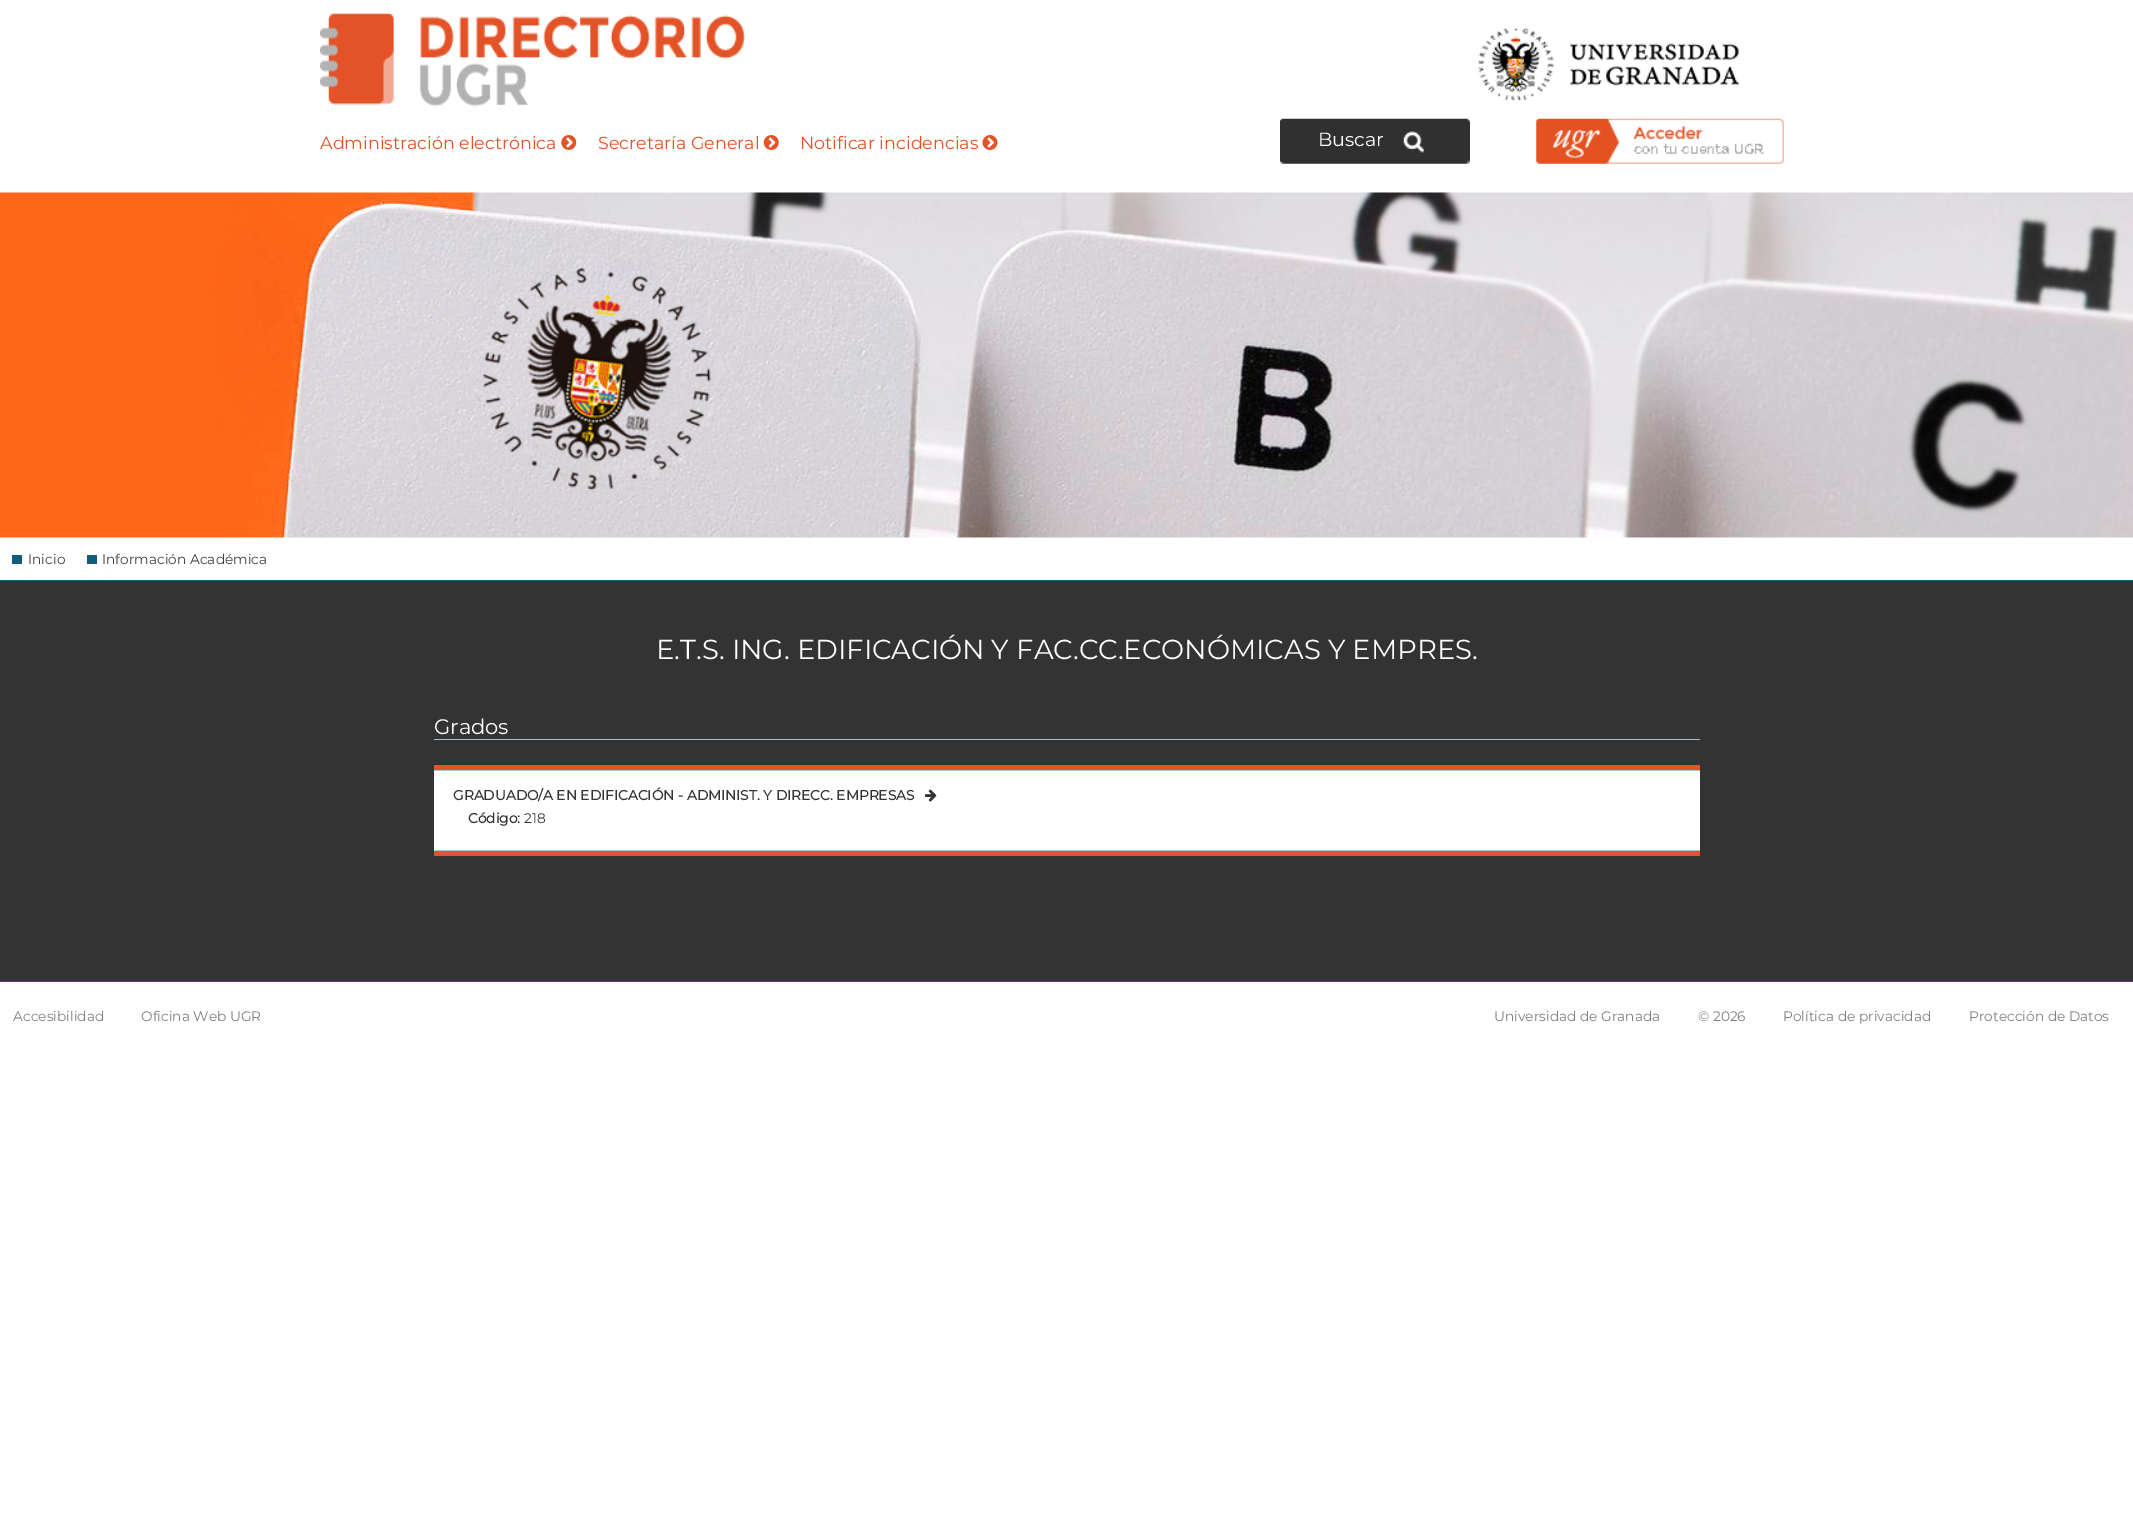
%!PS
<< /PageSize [2133 1518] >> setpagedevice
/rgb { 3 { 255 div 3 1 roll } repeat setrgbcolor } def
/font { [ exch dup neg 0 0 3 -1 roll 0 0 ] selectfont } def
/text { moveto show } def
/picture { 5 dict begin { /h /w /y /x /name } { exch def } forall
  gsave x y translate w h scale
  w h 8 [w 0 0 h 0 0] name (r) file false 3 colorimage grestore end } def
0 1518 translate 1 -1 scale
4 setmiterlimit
255 255 255 rgb
0 0 2133 1518 rectfill
(img_01.rgb) 320 12 425 95 picture
(img_02.rgb) 1478 28 261 73 picture
(img_03.rgb) 561 135 16 15 picture
(img_04.rgb) 763 135 16 15 picture
(img_05.rgb) 982 135 16 15 picture
(img_06.rgb) 1536 118 248 46 picture
(img_07.rgb) 0 192 2133 346 picture
(img_08.rgb) 1280 118 190 46 picture
18 92 128 rgb
12 555 10 9 rectfill
87 555 10 9 rectfill
51 51 51 rgb
0 581 2133 400 rectfill
18 92 128 rgb
0 580 2133 1 rectfill
0 981 2133 1 rectfill
160 190 204 rgb
434 739 1266 1 rectfill
227 83 39 rgb
434 765 1266 5 rectfill
434 851 1266 5 rectfill
255 255 255 rgb
434 771 1266 79 rectfill
172 198 211 rgb
434 770 1266 1 rectfill
434 850 1266 1 rectfill
(img_09.rgb) 925 789 12 13 picture
/Montserrat-Thin 17.5 font
227 83 39 rgb
(Administración electrónica) 320 149 text
(Secretaría General) 598 149 text
(Notificar incidencias) 800 149 text
/Montserrat-Thin 19 font
255 255 255 rgb
(Buscar) 1318 146 text
/Montserrat-Thin 13.75 font
64 64 64 rgb
(Inicio) 28 564 text
(Información Académica) 102 564 text
/Montserrat-Thin 27.5 font
255 255 255 rgb
(E.T.S. ING. EDIFICACIÓN Y FAC.CC.ECONÓMICAS Y EMPRES.) 656 659 text
/Montserrat-Thin 21 font
(Grados) 434 734 text
/Montserrat-Bold 13.75 font
51 51 51 rgb
(GRADUADO/A EN EDIFICACIÓN - ADMINIST. Y DIRECC. EMPRESAS) 453 800 text
(Código:) 468 823 text
/Montserrat-Thin 13.75 font
(218) 524 823 text
127 127 127 rgb
(Accesibilidad) 13 1021 text
(Oficina Web UGR) 141 1021 text
(Universidad de Granada) 1494 1021 text
(© 2026) 1698 1021 text
(Política de privacidad) 1783 1021 text
(Protección de Datos) 1969 1021 text
showpage
